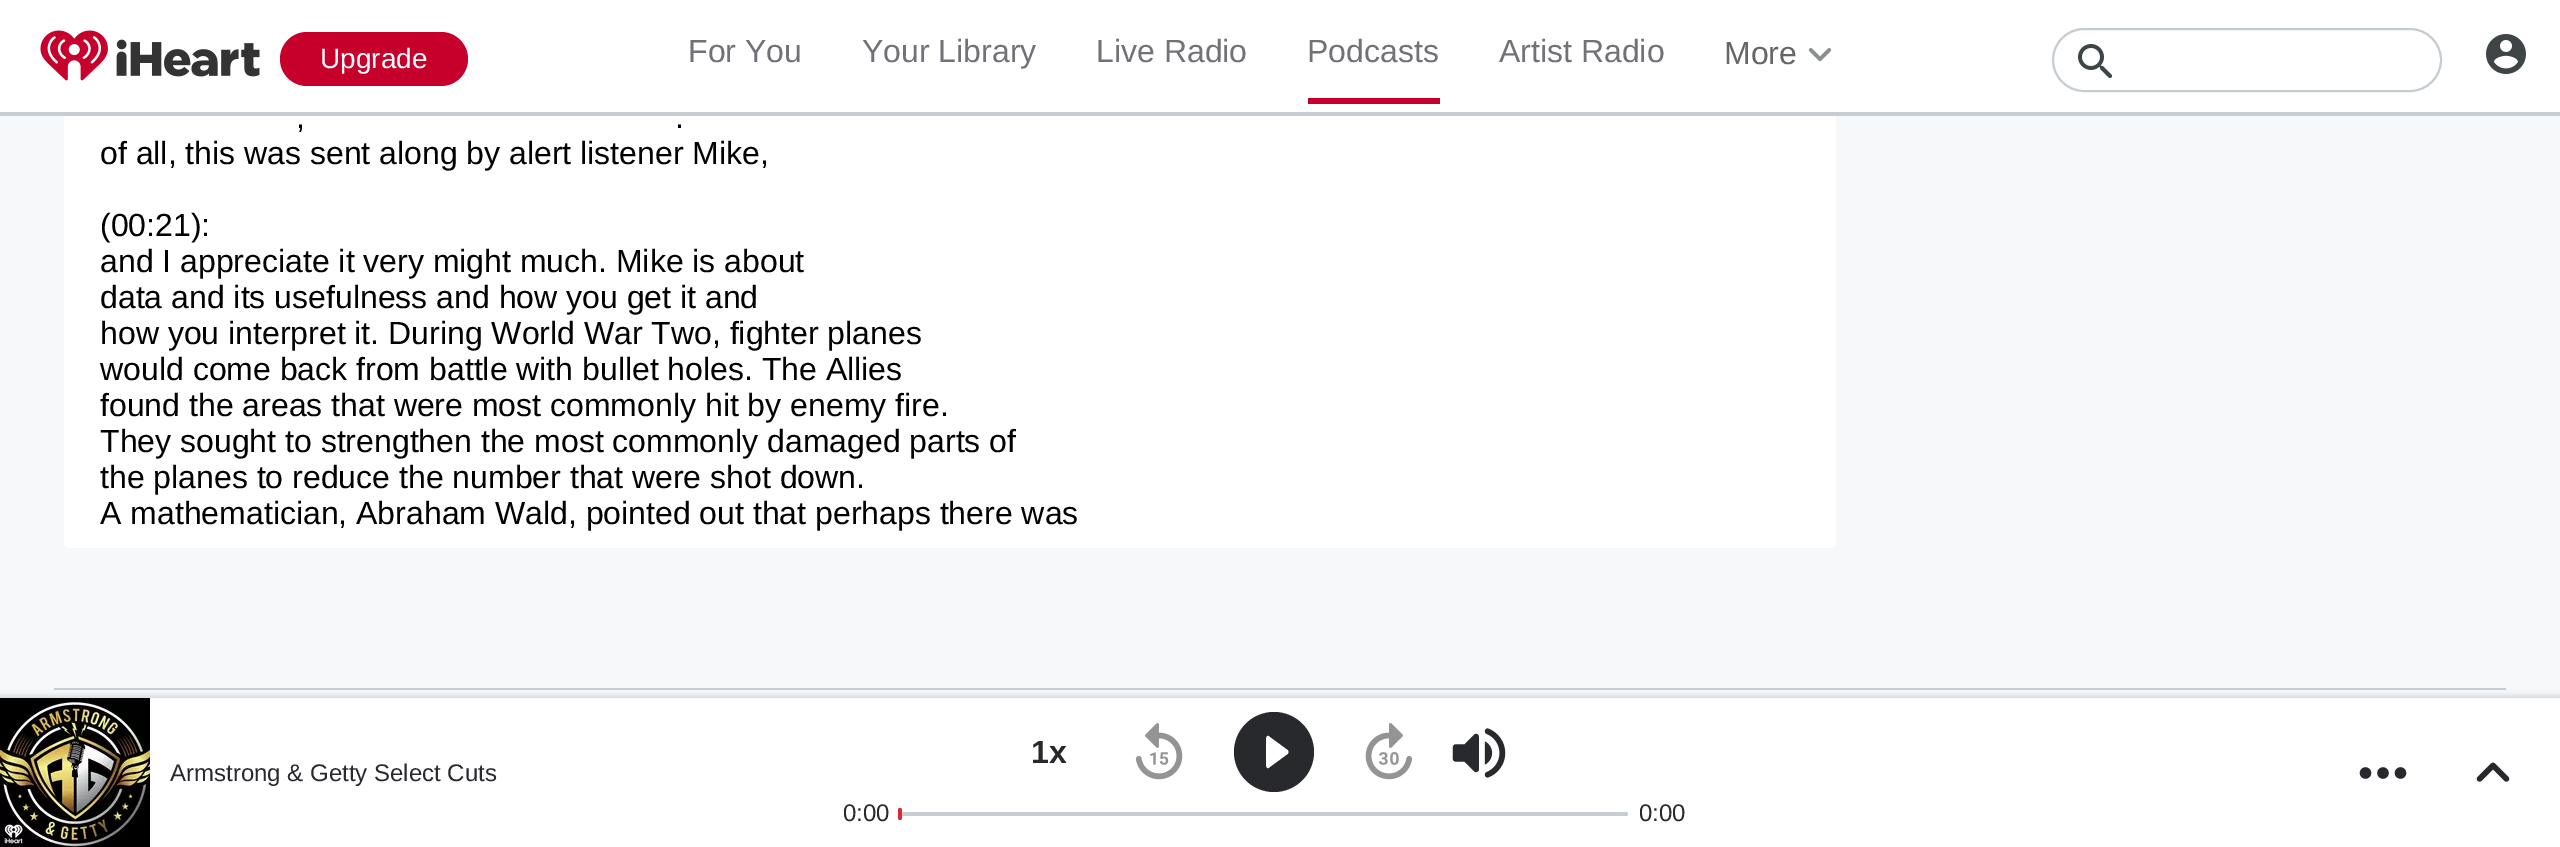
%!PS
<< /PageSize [2560 847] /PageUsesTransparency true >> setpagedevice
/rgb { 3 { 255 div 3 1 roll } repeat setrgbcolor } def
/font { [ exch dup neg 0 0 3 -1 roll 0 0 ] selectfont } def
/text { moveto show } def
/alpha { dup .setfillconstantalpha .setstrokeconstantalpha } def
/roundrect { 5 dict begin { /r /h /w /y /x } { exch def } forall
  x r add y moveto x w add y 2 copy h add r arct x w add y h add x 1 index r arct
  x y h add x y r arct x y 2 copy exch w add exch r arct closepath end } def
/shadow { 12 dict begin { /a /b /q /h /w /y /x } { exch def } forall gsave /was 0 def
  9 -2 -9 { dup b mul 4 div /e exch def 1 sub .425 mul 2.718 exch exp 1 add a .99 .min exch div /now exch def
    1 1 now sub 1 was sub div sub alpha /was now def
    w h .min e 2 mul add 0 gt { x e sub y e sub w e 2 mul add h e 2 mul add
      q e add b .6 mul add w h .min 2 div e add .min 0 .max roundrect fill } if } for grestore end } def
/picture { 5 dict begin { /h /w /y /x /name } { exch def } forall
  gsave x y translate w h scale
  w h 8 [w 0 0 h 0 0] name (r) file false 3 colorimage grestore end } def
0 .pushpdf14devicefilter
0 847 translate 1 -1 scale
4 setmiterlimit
246 248 249 rgb
0 0 2560 847 rectfill
255 255 255 rgb
64 -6 1772 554 6 roundrect fill
0 0 2560 112 rectfill
197 205 210 rgb
0 112 2560 4 rectfill
(img_01.rgb) 40 30 220 51 picture
198 0 43 rgb
280 32 188 54 27 roundrect fill
1308 98 132 6 rectfill
(img_02.rgb) 1808 48 24 14 picture
197 205 210 rgb
2 setlinewidth
2053 29 388 62 31 roundrect stroke
(img_03.rgb) 2078 44 35 35 picture
(img_04.rgb) 2486 34 40 40 picture
54 688 2452 2 rectfill
0 0 0 rgb
0 696 2560 150 0 3 0.15 shadow
255 255 255 rgb
150 698 2410 149 rectfill
(img_05.rgb) 0 698 150 149 picture
(img_06.rgb) 1135 723 48 57 picture
39 41 45 rgb
1274 712 moveto -22 0 -40 18 -40 40 rcurveto 0 22 18 40 40 40 rcurveto 22 0 40 -18 40 -40 rcurveto 0 -22 -18 -40 -40 -40 rcurveto closepath 1266 766 moveto 0 -28 rlineto 0 -2 2 -3 3 -2 rcurveto 19 14 rlineto 1 1 1 3 0 4 rcurveto -19 14 rlineto -1 1 -3 0 -3 -2 rcurveto closepath fill
(img_07.rgb) 1365 723 48 57 picture
(img_08.rgb) 1452 728 54 50 picture
197 205 210 rgb
900 812 728 4 2 roundrect fill
213 45 55 rgb
898 808 4 12 2 roundrect fill
(img_09.rgb) 2359 767 48 12 picture
(img_10.rgb) 2476 762 34 20 picture
/LiberationSans-Regular 28 font
255 255 255 rgb
(Upgrade) 320 68 text
/LiberationSans-Regular 32 font
113 114 119 rgb
(For You) 688 62 text
(Your Library) 862 62 text
(Live Radio) 1096 62 text
(Podcasts) 1307 62 text
(Artist Radio) 1499 62 text
102 102 102 rgb
(More) 1724 64 text
0 0 0 rgb
(,) 296 128 text
(.) 675 128 text
(of all, this was sent along by alert listener Mike,) 100 164 text
(\(00:21\):) 100 236 text
(and I appreciate it very might much. Mike is about) 100 272 text
(data and its usefulness and how you get it and) 100 308 text
(how you interpret it. During World War Two, fighter planes) 100 344 text
(would come back from battle with bullet holes. The Allies) 100 380 text
(found the areas that were most commonly hit by enemy fire.) 100 416 text
(They sought to strengthen the most commonly damaged parts of) 100 452 text
(the planes to reduce the number that were shot down.) 100 488 text
(A mathematician, Abraham Wald, pointed out that perhaps there was) 100 524 text
/LiberationSans-Regular 24 font
39 41 45 rgb
(Armstrong & Getty Select Cuts) 170 781 text
/LiberationSans-Bold 32 font
(1x) 1031 763 text
/LiberationSans-Regular 24 font
(0:00) 843 821 text
(0:00) 1639 821 text
.poppdf14devicefilter showpage
